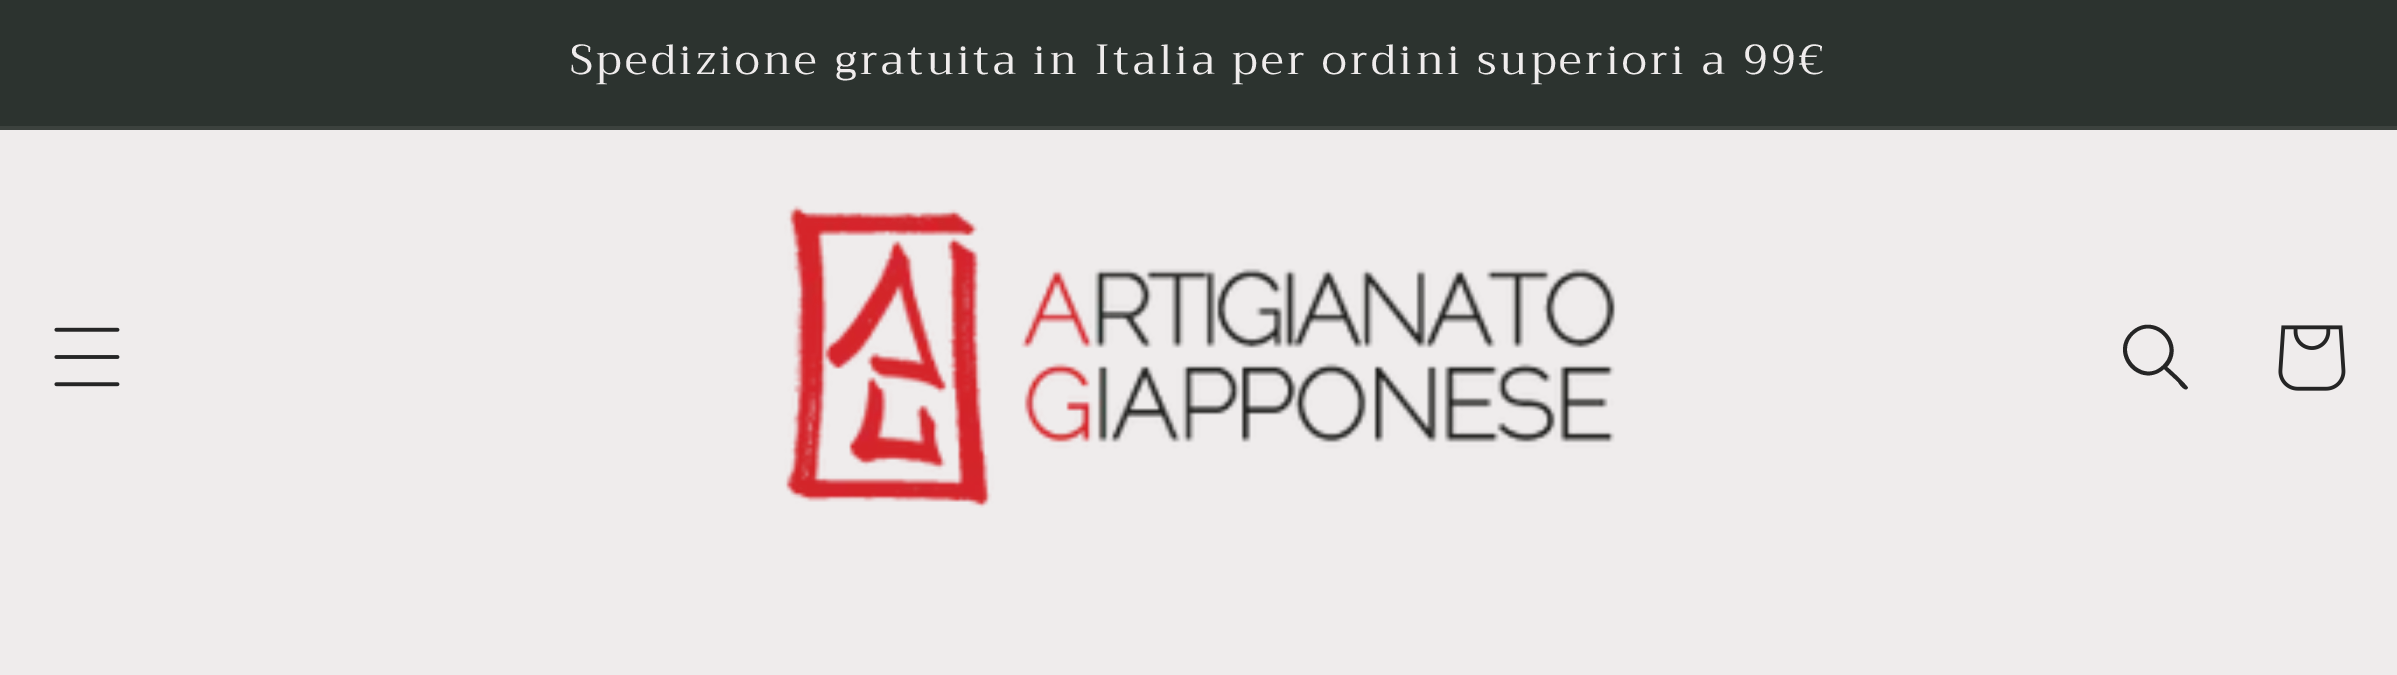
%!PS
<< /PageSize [2397 675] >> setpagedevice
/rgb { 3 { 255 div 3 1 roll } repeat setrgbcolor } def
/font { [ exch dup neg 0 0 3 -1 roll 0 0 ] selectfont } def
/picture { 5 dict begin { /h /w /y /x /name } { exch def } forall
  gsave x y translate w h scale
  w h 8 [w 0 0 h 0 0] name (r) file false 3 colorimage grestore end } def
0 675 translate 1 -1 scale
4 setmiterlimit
239 236 236 rgb
0 0 2397 675 rectfill
44 51 47 rgb
0 0 2397 126 rectfill
60 66 62 rgb
0 126 2397 4 rectfill
(img_01.rgb) 54 327 66 60 picture
(img_02.rgb) 784 205 833 303 picture
37 37 37 rgb
2163 365 moveto -19 20 -49 -10 -30 -30 rcurveto 20 -20 50 10 30 30 rcurveto closepath 2164 369 moveto -24 21 -56 -15 -33 -37 rcurveto 23 -22 57 11 36 35 rcurveto 3 2 21 19 21 21 rcurveto -1 1 rlineto -3 2 -8 -5 -9 -7 rcurveto closepath eofill
(img_03.rgb) 2278 325 68 66 picture
/Trirong-Regular 42 font
239 236 236 rgb
570 74 moveto 3.5 0 (Spedizione gratuita in Italia per ordini superiori a 99€) ashow
showpage
